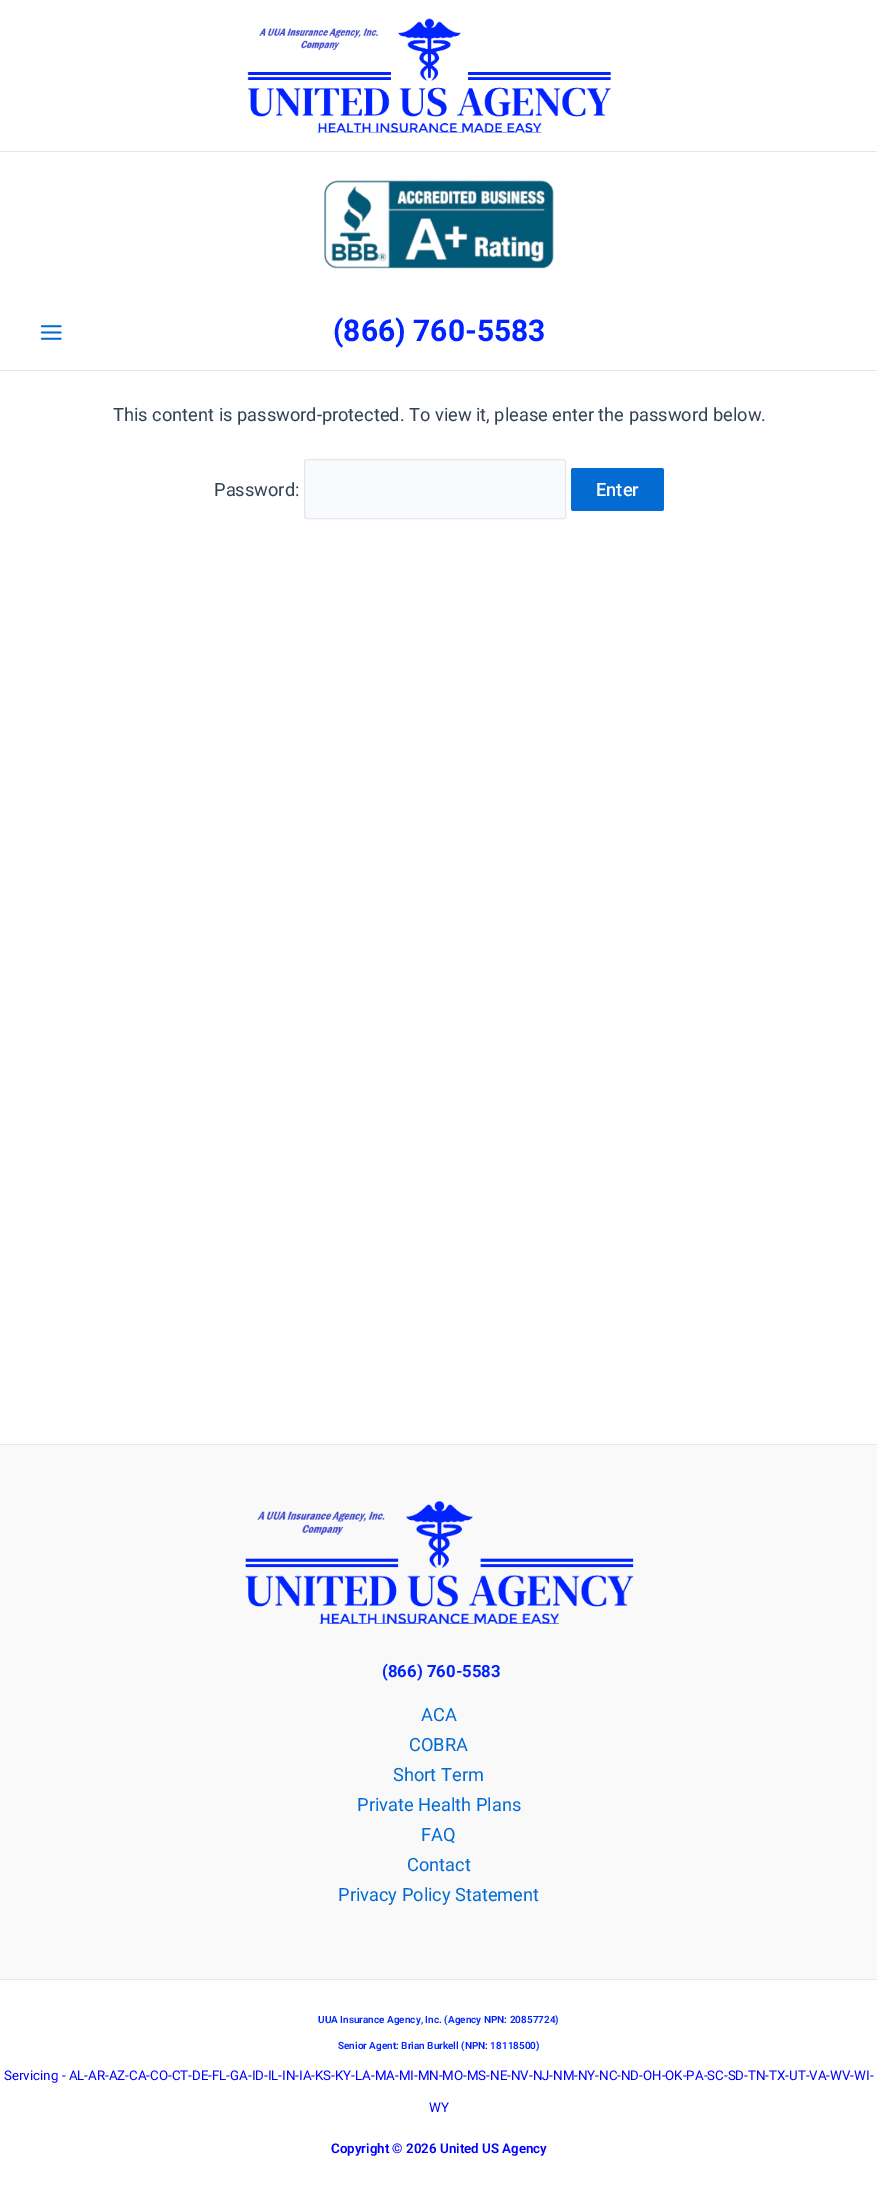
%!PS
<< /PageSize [877 2198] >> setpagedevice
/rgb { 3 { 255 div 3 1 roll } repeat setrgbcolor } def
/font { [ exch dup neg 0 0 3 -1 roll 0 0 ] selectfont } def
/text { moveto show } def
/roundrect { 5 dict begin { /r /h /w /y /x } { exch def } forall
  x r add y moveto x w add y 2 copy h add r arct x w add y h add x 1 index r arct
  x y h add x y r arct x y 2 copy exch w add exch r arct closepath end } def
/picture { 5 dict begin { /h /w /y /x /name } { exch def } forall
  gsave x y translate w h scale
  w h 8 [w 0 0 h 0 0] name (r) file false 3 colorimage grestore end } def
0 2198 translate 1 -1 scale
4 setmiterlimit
255 255 255 rgb
0 0 877 2198 rectfill
226 232 240 rgb
0 151 877 1 rectfill
(img_01.rgb) 247 18 365 115 picture
(img_02.rgb) 324 180 230 89 picture
0 370 877 1 rectfill
(img_03.rgb) 40 325 22 15 picture
249 250 251 rgb
304.5 459.5 261 59 2 roundrect gsave fill grestore
226 232 240 rgb
stroke
4 107 210 rgb
571 468 93 43 2.5 roundrect fill
249 249 249 rgb
0 1445 877 534 rectfill
226 232 240 rgb
0 1444 877 1 rectfill
(img_04.rgb) 245 1501 389 123 picture
0 1979 877 1 rectfill
/Roboto-Bold 30 font
0 35 255 rgb
(\(866\) 760-5583) 333 341 text
/Roboto-Regular 18.25 font
51 65 85 rgb
(This content is password-protected. To view it, please enter the password below.) 113 421 text
(Password:) 214 496 text
/Roboto-Medium 18.25 font
255 255 255 rgb
(Enter) 596 496 text
/Roboto-Bold 16.75 font
0 35 255 rgb
(\(866\) 760-5583) 382 1677 text
/Roboto-Regular 18.25 font
4 107 210 rgb
(ACA) 421 1721 text
(COBRA) 409 1751 text
(Short Term) 393 1781 text
(Private Health Plans) 357 1811 text
(FAQ) 421 1841 text
(Contact) 407 1871 text
(Privacy Policy Statement) 338 1901 text
/Roboto-SemiBold 10 font
0 35 255 rgb
(UUA Insurance Agency, Inc. \(Agency NPN: 20857724\)) 318 2023 text
(Senior Agent: Brian Burkell \(NPN: 18118500\)) 338 2049 text
/Roboto-Regular 13.33 font
0 0 255 rgb
(Servicing - AL-AR-AZ-CA-CO-CT-DE-FL-GA-ID-IL-IN-IA-KS-KY-LA-MA-MI-MN-MO-MS-NE-NV-NJ-NM-NY-NC-ND-OH-OK-PA-SC-SD-TN-TX-UT-VA-WV-WI-) 4 2080 text
(WY) 429 2112 text
/Roboto-SemiBold 13.33 font
(Copyright © 2026 United US Agency) 331 2153 text
showpage
